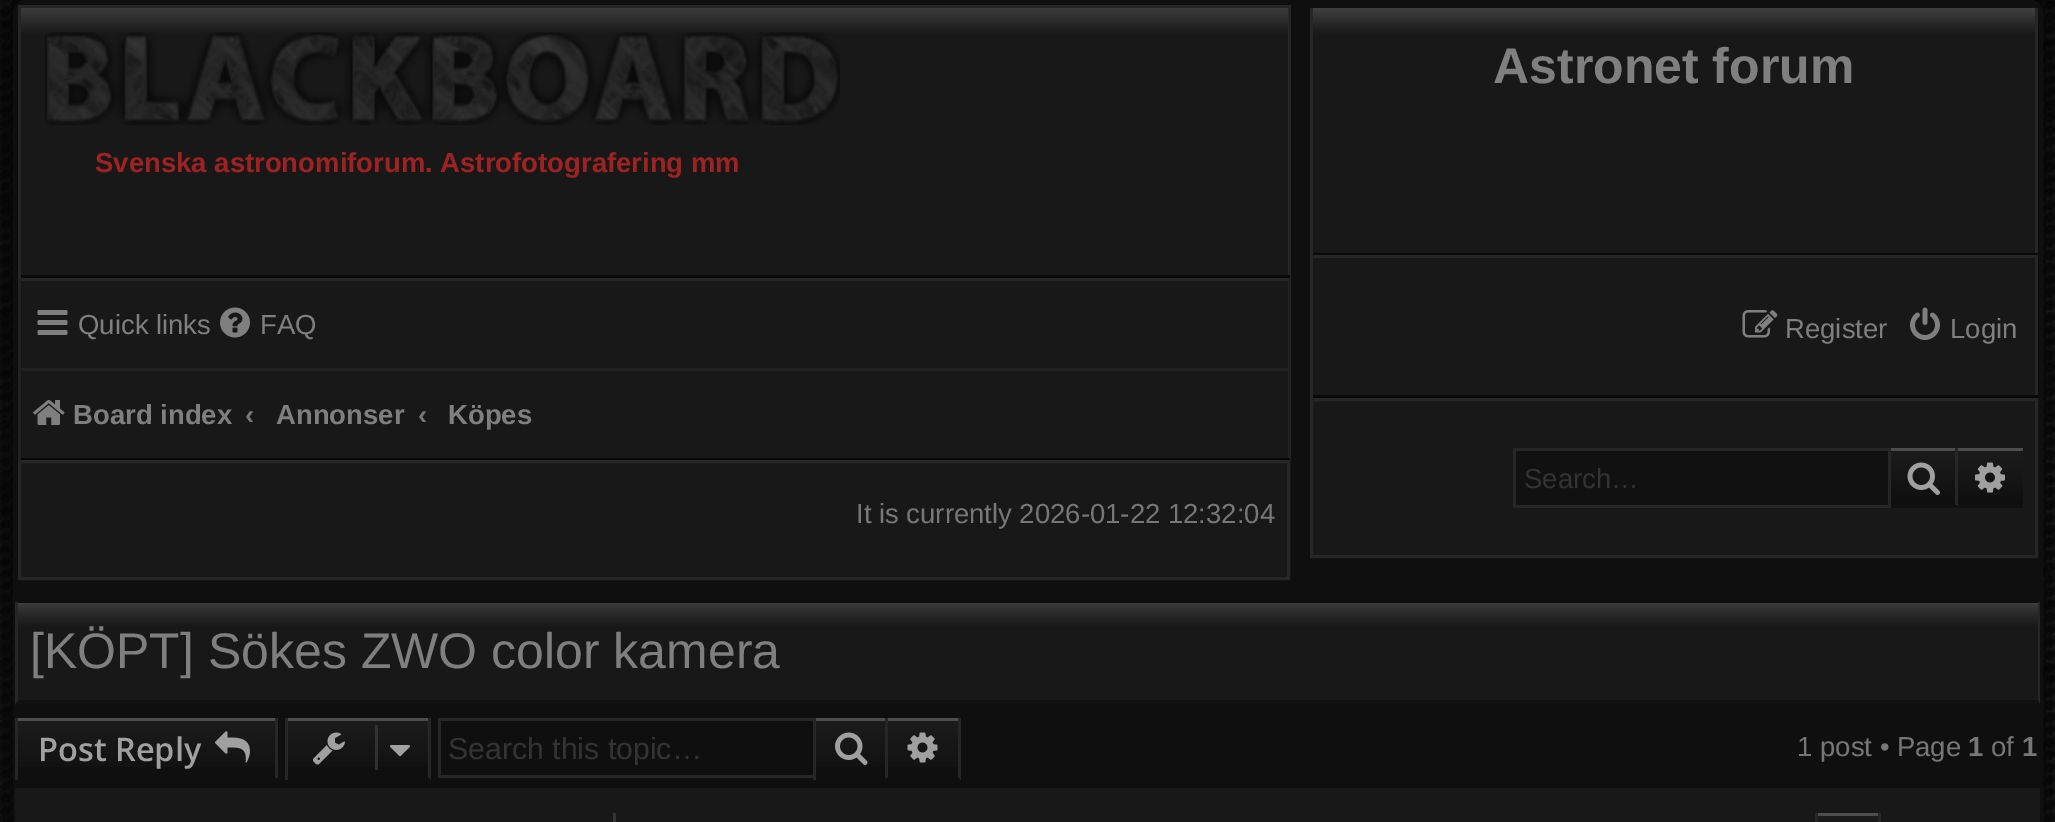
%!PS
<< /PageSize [2055 822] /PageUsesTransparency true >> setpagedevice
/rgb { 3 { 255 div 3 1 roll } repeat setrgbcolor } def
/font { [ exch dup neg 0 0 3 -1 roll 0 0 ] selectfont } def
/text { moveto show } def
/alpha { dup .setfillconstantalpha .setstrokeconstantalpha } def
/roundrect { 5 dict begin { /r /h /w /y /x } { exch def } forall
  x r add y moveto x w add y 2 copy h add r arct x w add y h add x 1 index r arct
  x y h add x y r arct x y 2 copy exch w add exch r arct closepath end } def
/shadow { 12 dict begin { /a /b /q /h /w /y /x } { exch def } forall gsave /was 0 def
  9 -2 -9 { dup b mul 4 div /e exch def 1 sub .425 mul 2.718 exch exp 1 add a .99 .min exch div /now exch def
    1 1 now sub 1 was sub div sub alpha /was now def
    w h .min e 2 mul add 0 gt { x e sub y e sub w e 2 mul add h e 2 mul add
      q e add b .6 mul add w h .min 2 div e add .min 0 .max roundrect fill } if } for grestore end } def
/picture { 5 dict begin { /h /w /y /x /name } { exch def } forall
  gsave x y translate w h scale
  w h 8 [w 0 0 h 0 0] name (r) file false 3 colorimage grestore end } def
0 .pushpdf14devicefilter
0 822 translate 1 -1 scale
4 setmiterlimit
255 255 255 rgb
0 0 2055 822 rectfill
(img_01.rgb) 0 0 2055 822 picture
5 5 5 rgb
0 -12 2055 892 25 11 0.9 shadow
15 15 15 rgb
13 0 2030 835 13 roundrect fill
gsave 1313 11 moveto 722 0 rlineto 0 242 rlineto -722 0 rlineto closepath clip newpath
<< /ShadingType 2 /ColorSpace /DeviceRGB /Coords [1674 10 1674 253] /Extend [true true] /Function << /FunctionType 3 /Domain [0 1] /Functions [<< /FunctionType 2 /Domain [0 1] /C0 [0.239 0.239 0.239] /C1 [0.094 0.094 0.094] /N 1 >> << /FunctionType 2 /Domain [0 1] /C0 [0.094 0.094 0.094] /C1 [0.094 0.094 0.094] /N 1 >>] /Bounds [0.1] /Encode [0 1 0 1] >> >> shfill grestore
61 61 61 rgb
1310 8 728 3 rectfill
38 38 38 rgb
2035 8 3 247 rectfill
9 9 9 rgb
1310 253 728 2 rectfill
38 38 38 rgb
1310 8 3 247 rectfill
gsave 21 8 moveto 1267 0 rlineto 0 267 rlineto -1267 0 rlineto closepath clip newpath
<< /ShadingType 2 /ColorSpace /DeviceRGB /Coords [654 7.5 654 275] /Extend [true true] /Function << /FunctionType 3 /Domain [0 1] /Functions [<< /FunctionType 2 /Domain [0 1] /C0 [0.239 0.239 0.239] /C1 [0.094 0.094 0.094] /N 1 >> << /FunctionType 2 /Domain [0 1] /C0 [0.094 0.094 0.094] /C1 [0.094 0.094 0.094] /N 1 >>] /Bounds [0.1] /Encode [0 1 0 1] >> >> shfill grestore
18 5 1272 3 rectfill
1288 5 3 273 rectfill
9 9 9 rgb
18 275 1272 3 rectfill
38 38 38 rgb
18 5 3 273 rectfill
(img_02.rgb) 45 32 795 93 picture
24 24 24 rgb
21 281 1267 177 rectfill
38 38 38 rgb
18 278 1272 3 rectfill
34 34 34 rgb
1288 278 3 182 rectfill
9 9 9 rgb
18 458 1272 2 rectfill
34 34 34 rgb
18 278 3 182 rectfill
(img_03.rgb) 37 310 31 25 picture
(img_04.rgb) 220 307 30 31 picture
33 33 33 rgb
20 368 1268 3 rectfill
(img_05.rgb) 33 400 32 25 picture
24 24 24 rgb
1313 258 722 137 rectfill
38 38 38 rgb
1310 255 728 3 rectfill
2035 255 3 143 rectfill
9 9 9 rgb
1310 395 728 3 rectfill
38 38 38 rgb
1310 255 3 143 rectfill
(img_06.rgb) 1742 310 36 28 picture
(img_07.rgb) 1910 307 30 33 picture
24 24 24 rgb
1311.5 399.5 moveto 725 0 rlineto 0 157 rlineto -725 0 rlineto closepath gsave fill grestore
38 38 38 rgb
3 setlinewidth
stroke
gsave 1891 451 moveto 64 0 rlineto 0 54 rlineto -64 0 rlineto closepath clip newpath
<< /ShadingType 2 /ColorSpace /DeviceRGB /Coords [1923 450 1923 505] /Extend [true true] /Function << /FunctionType 2 /Domain [0 1] /C0 [0.11 0.11 0.11] /C1 [0.059 0.059 0.059] /N 1 >> >> shfill grestore
77 77 77 rgb
1888 448 135 3 rectfill
38 38 38 rgb
1955 448 3 60 rectfill
17 17 17 rgb
1888 505 135 3 rectfill
38 38 38 rgb
1888 448 3 60 rectfill
(img_08.rgb) 1907 462 33 33 picture
17 17 17 rgb
1516 451 372 54 rectfill
38 38 38 rgb
1513 448 375 3 rectfill
1513 505 375 3 rectfill
1513 448 3 60 rectfill
gsave 1958 451 moveto 65 0 rlineto 0 54 rlineto -65 0 rlineto closepath clip newpath
<< /ShadingType 2 /ColorSpace /DeviceRGB /Coords [1990 450 1990 505] /Extend [true true] /Function << /FunctionType 2 /Domain [0 1] /C0 [0.11 0.11 0.11] /C1 [0.059 0.059 0.059] /N 1 >> >> shfill grestore
(img_09.rgb) 1975 462 30 31 picture
24 24 24 rgb
19.5 461.5 moveto 1269 0 rlineto 0 117 rlineto -1269 0 rlineto closepath gsave fill grestore
38 38 38 rgb
stroke
gsave 18 603 moveto 2020 0 rlineto 0 97 rlineto -2020 0 rlineto closepath clip newpath
<< /ShadingType 2 /ColorSpace /DeviceRGB /Coords [1028 602 1028 700] /Extend [true true] /Function << /FunctionType 3 /Domain [0 1] /Functions [<< /FunctionType 2 /Domain [0 1] /C0 [0.239 0.239 0.239] /C1 [0.094 0.094 0.094] /N 1 >> << /FunctionType 2 /Domain [0 1] /C0 [0.094 0.094 0.094] /C1 [0.094 0.094 0.094] /N 1 >>] /Bounds [0.25] /Encode [0 1 0 1] >> >> shfill grestore
2040 602 moveto 0 103 rlineto -2 -5 rlineto 0 -98 rlineto closepath fill
17 17 17 rgb
2040 705 moveto -2025 0 rlineto 3 -5 rlineto 2020 0 rlineto closepath fill
38 38 38 rgb
15 705 moveto 0 -103 rlineto 3 0 rlineto 0 98 rlineto closepath fill
gsave 18 721 moveto 257 0 rlineto 0 46 rlineto -257 0 rlineto closepath clip newpath
<< /ShadingType 2 /ColorSpace /DeviceRGB /Coords [146 720 146 778] /Extend [true true] /Function << /FunctionType 2 /Domain [0 1] /C0 [0.11 0.11 0.11] /C1 [0.059 0.059 0.059] /N 1 >> >> shfill grestore
77 77 77 rgb
15 718 263 3 rectfill
38 38 38 rgb
275 718 3 62 rectfill
17 17 17 rgb
275 778 3 2 rectfill
38 38 38 rgb
15 718 3 62 rectfill
(img_10.rgb) 215 731 35 32 picture
gsave 288 721 moveto 140 0 rlineto 0 46 rlineto -140 0 rlineto closepath clip newpath
<< /ShadingType 2 /ColorSpace /DeviceRGB /Coords [358 720 358 778] /Extend [true true] /Function << /FunctionType 2 /Domain [0 1] /C0 [0.11 0.11 0.11] /C1 [0.059 0.059 0.059] /N 1 >> >> shfill grestore
77 77 77 rgb
285 718 145 3 rectfill
38 38 38 rgb
428 718 3 62 rectfill
17 17 17 rgb
428 778 2 2 rectfill
38 38 38 rgb
285 718 3 62 rectfill
(img_11.rgb) 313 732 32 33 picture
49 49 49 rgb
375 725 3 45 rectfill
(img_12.rgb) 390 745 20 12 picture
gsave 816 721 moveto 69 0 rlineto 0 46 rlineto -69 0 rlineto closepath clip newpath
<< /ShadingType 2 /ColorSpace /DeviceRGB /Coords [850 720 850 778] /Extend [true true] /Function << /FunctionType 2 /Domain [0 1] /C0 [0.11 0.11 0.11] /C1 [0.059 0.059 0.059] /N 1 >> >> shfill grestore
77 77 77 rgb
813 718 147 3 rectfill
38 38 38 rgb
885 718 3 62 rectfill
17 17 17 rgb
885 778 3 2 rectfill
38 38 38 rgb
813 718 3 62 rectfill
(img_13.rgb) 835 732 33 33 picture
438 718 375 3 rectfill
438 775 375 3 rectfill
438 718 3 60 rectfill
gsave 888 721 moveto 70 0 rlineto 0 46 rlineto -70 0 rlineto closepath clip newpath
<< /ShadingType 2 /ColorSpace /DeviceRGB /Coords [923 720 923 778] /Extend [true true] /Function << /FunctionType 2 /Domain [0 1] /C0 [0.11 0.11 0.11] /C1 [0.059 0.059 0.059] /N 1 >> >> shfill grestore
958 718 3 62 rectfill
17 17 17 rgb
958 778 2 2 rectfill
(img_14.rgb) 907 732 31 31 picture
24 24 24 rgb
15 788 2025 34 rectfill
51 51 51 rgb
613 813 3 9 rectfill
gsave 1815 816 moveto 65 0 rlineto 0 5 rlineto -65 0 rlineto closepath clip newpath
<< /ShadingType 2 /ColorSpace /DeviceRGB /Coords [1848 815 1848 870] /Extend [true true] /Function << /FunctionType 2 /Domain [0 1] /C0 [0.11 0.11 0.11] /C1 [0.059 0.059 0.059] /N 1 >> >> shfill grestore
77 77 77 rgb
1815 813 65 3 rectfill
38 38 38 rgb
1878 813 3 9 rectfill
1815 813 3 9 rectfill
/LiberationSans-Bold 50 font
127 127 127 rgb
(Astronet forum) 1493 83 text
/LiberationSans-Bold 27.5 font
158 34 34 rgb
(Svenska astronomiforum. Astrofotografering mm) 95 172 text
/LiberationSans-Regular 27.5 font
127 127 127 rgb
(Quick links) 78 334 text
(FAQ) 260 334 text
/LiberationSans-Bold 27.5 font
(Board index) 73 424 text
119 119 119 rgb
(‹) 245 424 text
127 127 127 rgb
(Annonser) 276 424 text
119 119 119 rgb
(‹) 418 424 text
127 127 127 rgb
(Köpes) 448 424 text
/LiberationSans-Regular 27.5 font
(Register) 1785 338 text
(Login) 1950 338 text
51 51 51 rgb
(Search…) 1524 488 text
119 119 119 rgb
(It is currently 2026-01-22 12:32:04) 856 523 text
/LiberationSans-Regular 50 font
127 127 127 rgb
([KÖPT] Sökes ZWO color kamera) 30 668 text
/OpenSans-SemiBold 32.5 font
160 160 160 rgb
(Post Reply) 38 761 text
gsave
448 730 347 35 rectclip
/LiberationSans-Regular 30.25 font
51 51 51 rgb
(Search this topic…) 448 759 text
grestore
/LiberationSans-Regular 27.5 font
119 119 119 rgb
(1 post • Page) 1797 756 text
/LiberationSans-Bold 27.5 font
(1) 1968 756 text
/LiberationSans-Regular 27.5 font
(of) 1991 756 text
/LiberationSans-Bold 27.5 font
(1) 2022 756 text
.poppdf14devicefilter showpage
